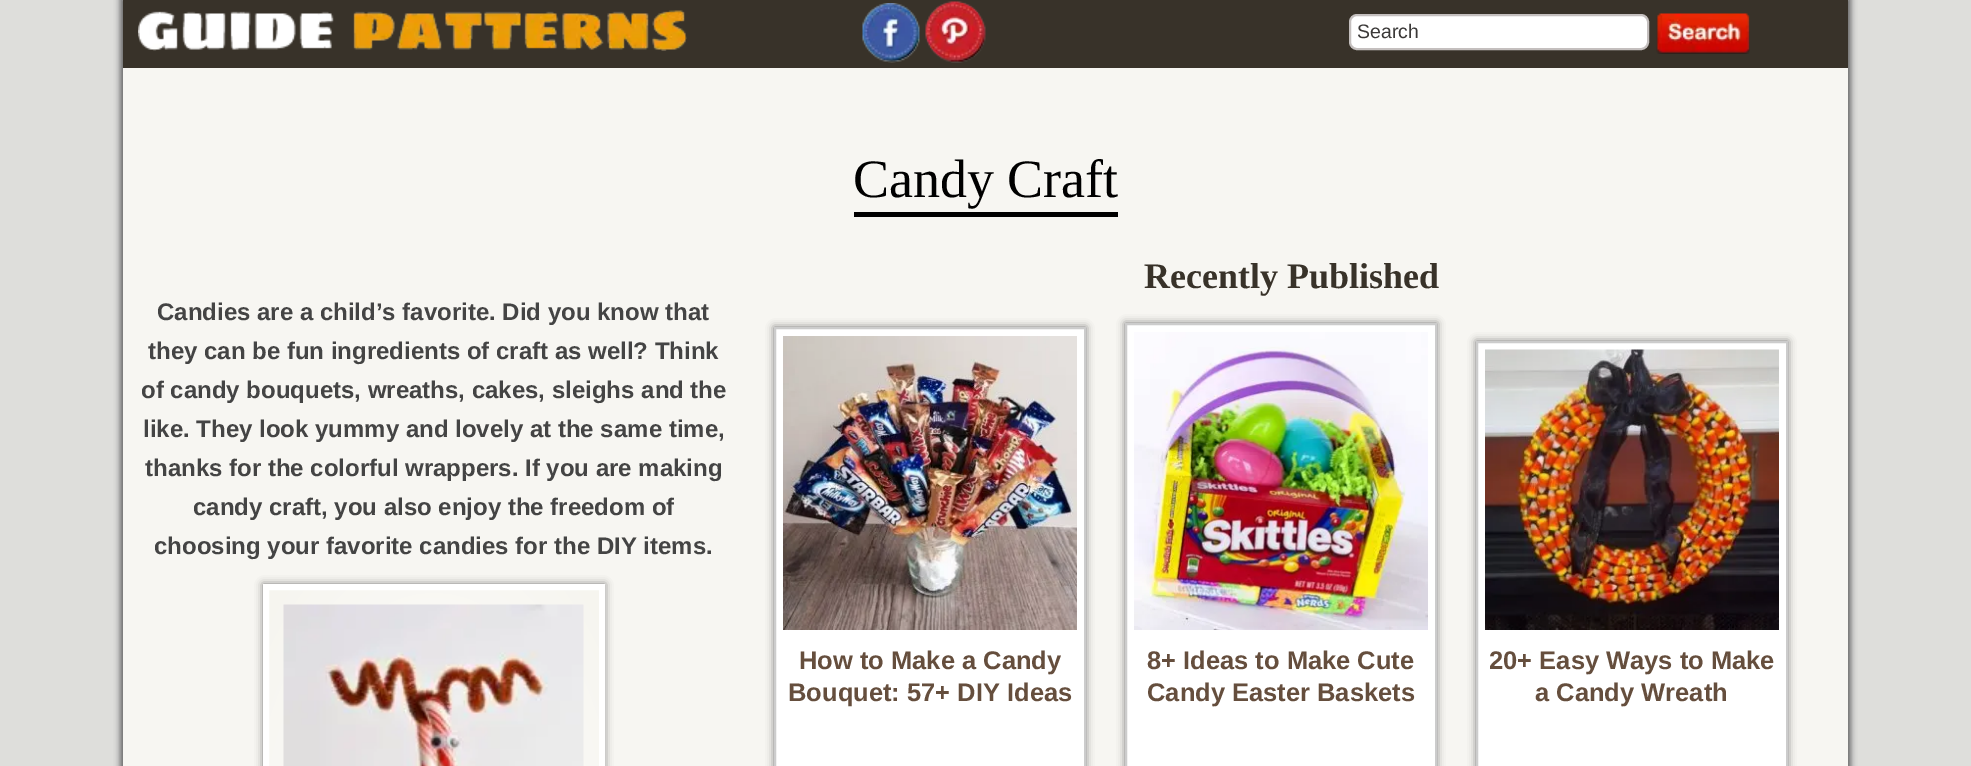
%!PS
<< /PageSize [1971 766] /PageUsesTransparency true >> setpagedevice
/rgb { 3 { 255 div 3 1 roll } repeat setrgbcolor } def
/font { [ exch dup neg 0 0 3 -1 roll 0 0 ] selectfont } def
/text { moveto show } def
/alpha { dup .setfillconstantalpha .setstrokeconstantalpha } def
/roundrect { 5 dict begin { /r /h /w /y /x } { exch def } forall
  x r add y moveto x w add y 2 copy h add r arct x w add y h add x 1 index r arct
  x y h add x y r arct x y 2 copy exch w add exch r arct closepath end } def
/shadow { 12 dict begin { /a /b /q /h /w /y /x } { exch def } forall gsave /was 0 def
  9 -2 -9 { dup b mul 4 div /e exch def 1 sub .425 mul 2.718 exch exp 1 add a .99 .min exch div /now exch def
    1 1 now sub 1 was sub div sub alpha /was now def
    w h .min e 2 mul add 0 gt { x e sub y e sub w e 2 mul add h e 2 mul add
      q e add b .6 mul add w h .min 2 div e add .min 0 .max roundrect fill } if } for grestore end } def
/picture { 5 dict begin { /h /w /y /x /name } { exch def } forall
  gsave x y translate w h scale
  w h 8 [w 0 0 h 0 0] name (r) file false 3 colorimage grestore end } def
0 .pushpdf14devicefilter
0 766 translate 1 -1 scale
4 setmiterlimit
222 222 219 rgb
0 0 1971 766 rectfill
102 102 102 rgb
120 -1 1713 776 0 3 1 shadow
138 -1 1713 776 0 3 1 shadow
247 246 242 rgb
123 68 1725 698 rectfill
56 50 41 rgb
123 0 1725 68 rectfill
(img_01.rgb) 138 10 549 41 picture
(img_02.rgb) 862 3 58 60 picture
(img_03.rgb) 925 1 61 62 picture
255 255 255 rgb
1350 15 298 34 7 roundrect gsave fill grestore
196 191 190 rgb
2 setlinewidth
stroke
(img_04.rgb) 1656 13 94 41 picture
0 0 0 rgb
854 212 264 5 rectfill
263 584 342 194 0 4 0.5 shadow
gsave 269 590 moveto 330 0 rlineto 0 176 rlineto -330 0 rlineto closepath clip newpath 434 865 translate 233 389 scale
<< /ShadingType 3 /ColorSpace /DeviceRGB /Coords [0 0 0 0 0 1] /Extend [true true] /Function << /FunctionType 2 /Domain [0 1] /C0 [1 1 1] /C1 [0.965 0.961 0.937] /N 1 >> >> shfill grestore
255 255 255 rgb
6 setlinewidth
266 587 336 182 rectstroke
(img_05.rgb) 283 604 301 162 picture
0 0 0 rgb
774 327 312 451 0 4 0.5 shadow
255 255 255 rgb
775 328 moveto 310 0 rlineto 0 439 rlineto -310 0 rlineto closepath gsave fill grestore
204 204 204 rgb
2 setlinewidth
stroke
(img_06.rgb) 783 336 294 294 picture
0 0 0 rgb
1125 323 312 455 0 4 0.5 shadow
255 255 255 rgb
1126 324 moveto 310 0 rlineto 0 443 rlineto -310 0 rlineto closepath gsave fill grestore
204 204 204 rgb
stroke
(img_07.rgb) 1134 332 294 298 picture
0 0 0 rgb
1476 341 312 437 0 4 0.5 shadow
255 255 255 rgb
1477 342 moveto 310 0 rlineto 0 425 rlineto -310 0 rlineto closepath gsave fill grestore
204 204 204 rgb
stroke
(img_08.rgb) 1485 349 294 281 picture
/LiberationSans-Regular 19.5 font
59 57 56 rgb
(Search) 1357 38 text
/LiberationSerif-Regular 54 font
0 0 0 rgb
(Candy Craft) 853 197 text
/LiberationSans-Bold 24 font
68 68 68 rgb
(Candies are a child’s favorite. Did you know that) 157 320 text
(they can be fun ingredients of craft as well? Think) 148 359 text
(of candy bouquets, wreaths, cakes, sleighs and the) 141 398 text
(like. They look yummy and lovely at the same time,) 143 437 text
(thanks for the colorful wrappers. If you are making) 145 476 text
(candy craft, you also enjoy the freedom of) 193 515 text
(choosing your favorite candies for the DIY items.) 154 554 text
/LiberationSerif-Bold 36 font
56 50 41 rgb
(Recently Published) 1144 288 text
/LiberationSans-Bold 25.5 font
101 78 61 rgb
(How to Make a Candy) 799 669 text
(Bouquet: 57+ DIY Ideas) 788 701 text
(8+ Ideas to Make Cute) 1147 669 text
(Candy Easter Baskets) 1147 701 text
(20+ Easy Ways to Make) 1489 669 text
(a Candy Wreath) 1535 701 text
.poppdf14devicefilter showpage
